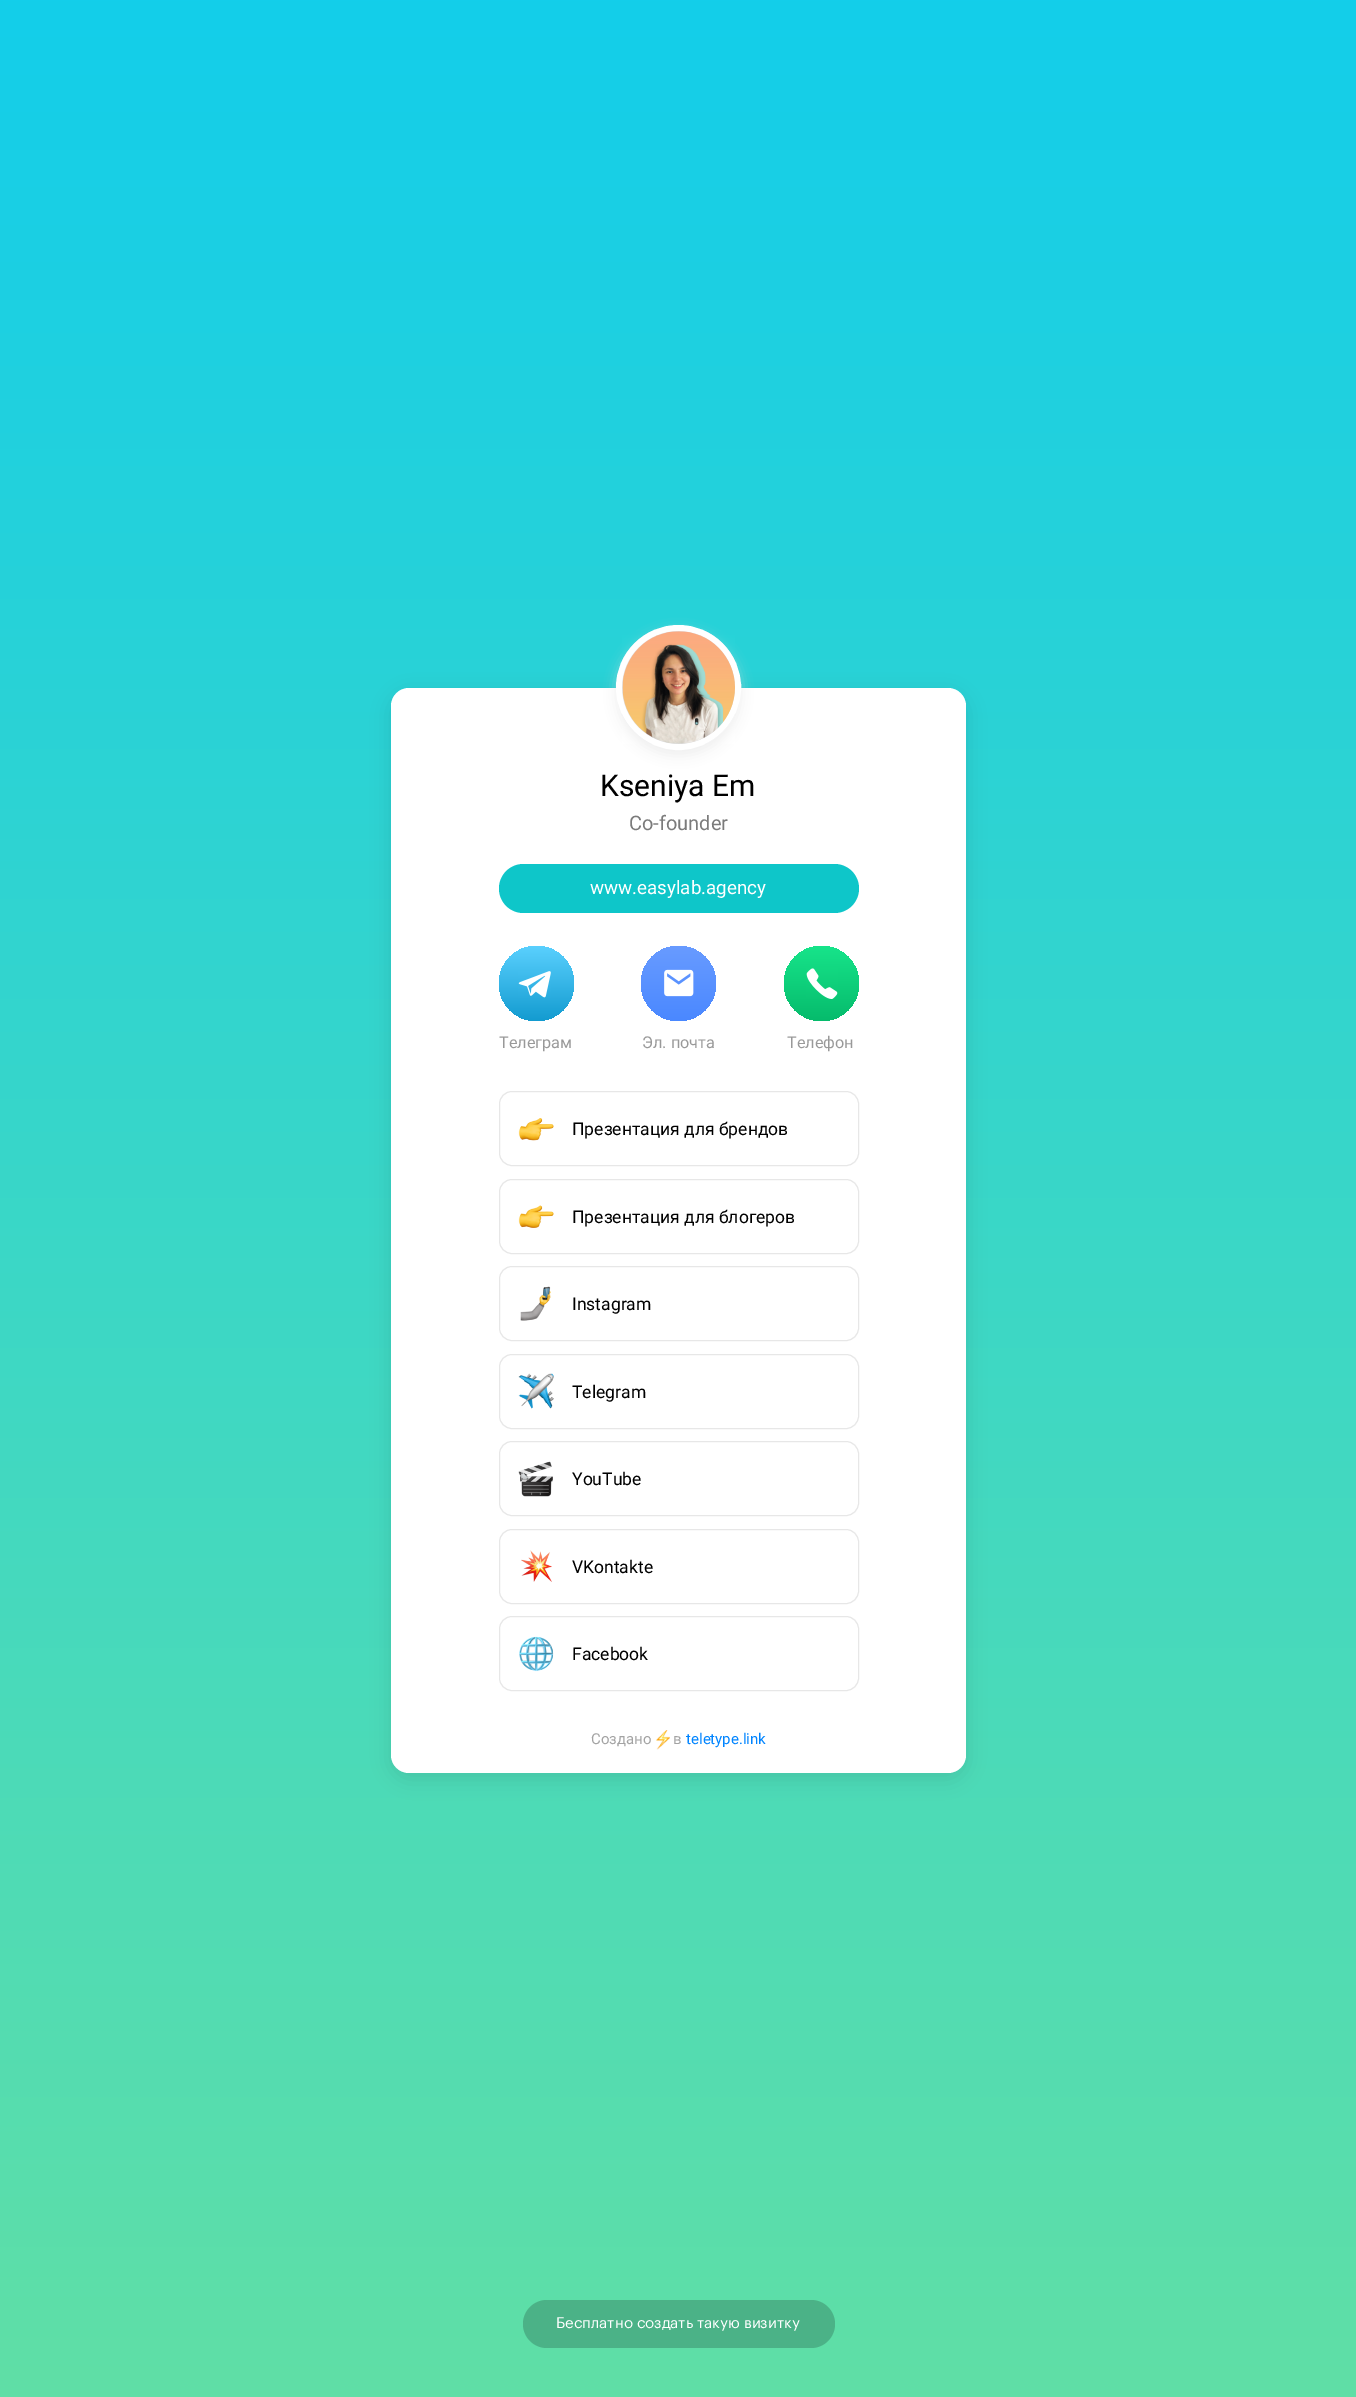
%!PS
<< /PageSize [1356 2397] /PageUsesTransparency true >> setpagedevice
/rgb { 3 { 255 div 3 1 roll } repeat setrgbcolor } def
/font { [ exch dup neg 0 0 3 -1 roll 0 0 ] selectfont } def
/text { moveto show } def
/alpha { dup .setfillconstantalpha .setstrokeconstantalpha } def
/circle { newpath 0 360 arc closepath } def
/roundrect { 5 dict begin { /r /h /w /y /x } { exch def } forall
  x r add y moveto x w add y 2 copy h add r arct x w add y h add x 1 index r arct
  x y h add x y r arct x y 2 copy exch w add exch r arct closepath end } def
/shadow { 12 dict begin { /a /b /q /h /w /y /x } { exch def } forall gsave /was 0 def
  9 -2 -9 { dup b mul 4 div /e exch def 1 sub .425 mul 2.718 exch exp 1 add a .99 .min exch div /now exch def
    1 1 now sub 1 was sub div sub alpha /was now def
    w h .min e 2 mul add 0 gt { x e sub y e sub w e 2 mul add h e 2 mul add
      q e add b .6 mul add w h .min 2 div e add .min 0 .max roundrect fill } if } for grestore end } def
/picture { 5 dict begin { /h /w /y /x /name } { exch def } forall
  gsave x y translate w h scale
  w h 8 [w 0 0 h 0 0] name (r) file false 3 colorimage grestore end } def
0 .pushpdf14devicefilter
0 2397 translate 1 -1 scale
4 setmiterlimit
255 255 255 rgb
0 0 1356 2397 rectfill
gsave 0 0 moveto 1356 0 rlineto 0 2397 rlineto -1356 0 rlineto closepath clip newpath
<< /ShadingType 2 /ColorSpace /DeviceRGB /Coords [678 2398 678 0] /Extend [true true] /Function << /FunctionType 2 /Domain [0 1] /C0 [0.376 0.875 0.651] /C1 [0.075 0.808 0.918] /N 1 >> >> shfill grestore
0 0 0 rgb
391 694 575 1085 18 9.5 0.1 shadow
255 255 255 rgb
391 688 575 1085 18 roundrect fill
222 222 222 rgb
616 631 125 125 62.5 6 0.5 shadow
223 224 228 rgb
678.5 687.5 59.5 circle gsave fill grestore
255 255 255 rgb
6 setlinewidth
stroke
(img_01.rgb) 622 631 113 113 picture
14 198 201 rgb
499 864 360 49 24.5 roundrect fill
gsave 536.5 983.5 37.5 circle clip newpath
<< /ShadingType 2 /ColorSpace /DeviceRGB /Coords [536 946 536 1021] /Extend [true true] /Function << /FunctionType 2 /Domain [0 1] /C0 [0.353 0.816 0.996] /C1 [0.075 0.608 0.816] /N 1 >> >> shfill grestore
(img_02.rgb) 518 971 33 27 picture
gsave 678.5 983.5 37.5 circle clip newpath
<< /ShadingType 2 /ColorSpace /DeviceRGB /Coords [679 946 679 1021] /Extend [true true] /Function << /FunctionType 2 /Domain [0 1] /C0 [0.408 0.608 1] /C1 [0.29 0.533 1] /N 1 >> >> shfill grestore
(img_03.rgb) 664 969 30 28 picture
gsave 821.5 983.5 37.5 circle clip newpath
<< /ShadingType 2 /ColorSpace /DeviceRGB /Coords [821 946 821 1021] /Extend [true true] /Function << /FunctionType 2 /Domain [0 1] /C0 [0.09 0.894 0.541] /C1 [0.024 0.733 0.424] /N 1 >> >> shfill grestore
(img_04.rgb) 806 968 32 31 picture
231 231 231 rgb
1 setlinewidth
499.5 1091.5 359 74 12.5 roundrect stroke
(img_05.rgb) 518 1118 36 23 picture
499.5 1179.5 359 74 12.5 roundrect stroke
(img_06.rgb) 518 1205 36 23 picture
499.5 1266.5 359 74 12.5 roundrect stroke
(img_07.rgb) 520 1286 31 35 picture
499.5 1354.5 359 74 12.5 roundrect stroke
(img_08.rgb) 518 1373 36 36 picture
499.5 1441.5 359 74 12.5 roundrect stroke
(img_09.rgb) 518 1461 35 36 picture
499.5 1529.5 359 74 12.5 roundrect stroke
(img_10.rgb) 521 1550 31 32 picture
499.5 1616.5 359 74 12.5 roundrect stroke
(img_11.rgb) 519 1636 35 36 picture
(img_12.rgb) 656 1730 14 20 picture
75 178 135 rgb
523 2300 312 48 24 roundrect fill
/Roboto-Regular 30 font
0 0 0 rgb
(Kseniya Em) 600 796 text
/Roboto-Regular 20 font
123 123 123 rgb
(Co-founder) 629 830 text
/Roboto-Regular 18.75 font
255 255 255 rgb
(www.easylab.agency) 590 894 text
/Roboto-Regular 16.25 font
153 153 153 rgb
(Телеграм) 499 1048 text
(Эл. почта) 642 1048 text
(Телефон) 787 1048 text
/Roboto-Regular 17.5 font
0 0 0 rgb
(Презентация для брендов) 572 1135 text
(Презентация для блогеров) 572 1223 text
(Instagram) 572 1310 text
(Telegram) 572 1398 text
(YouTube) 572 1485 text
(VKontakte) 572 1573 text
(Facebook) 572 1660 text
/Roboto-Regular 15 font
163 163 163 rgb
(Создано) 591 1744 text
(в) 673 1744 text
0 132 255 rgb
(teletype.link) 686 1744 text
/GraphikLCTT-Regular 15 font
255 255 255 rgb
(Бесплатно создать такую визитку) 556 2328 text
.poppdf14devicefilter showpage
